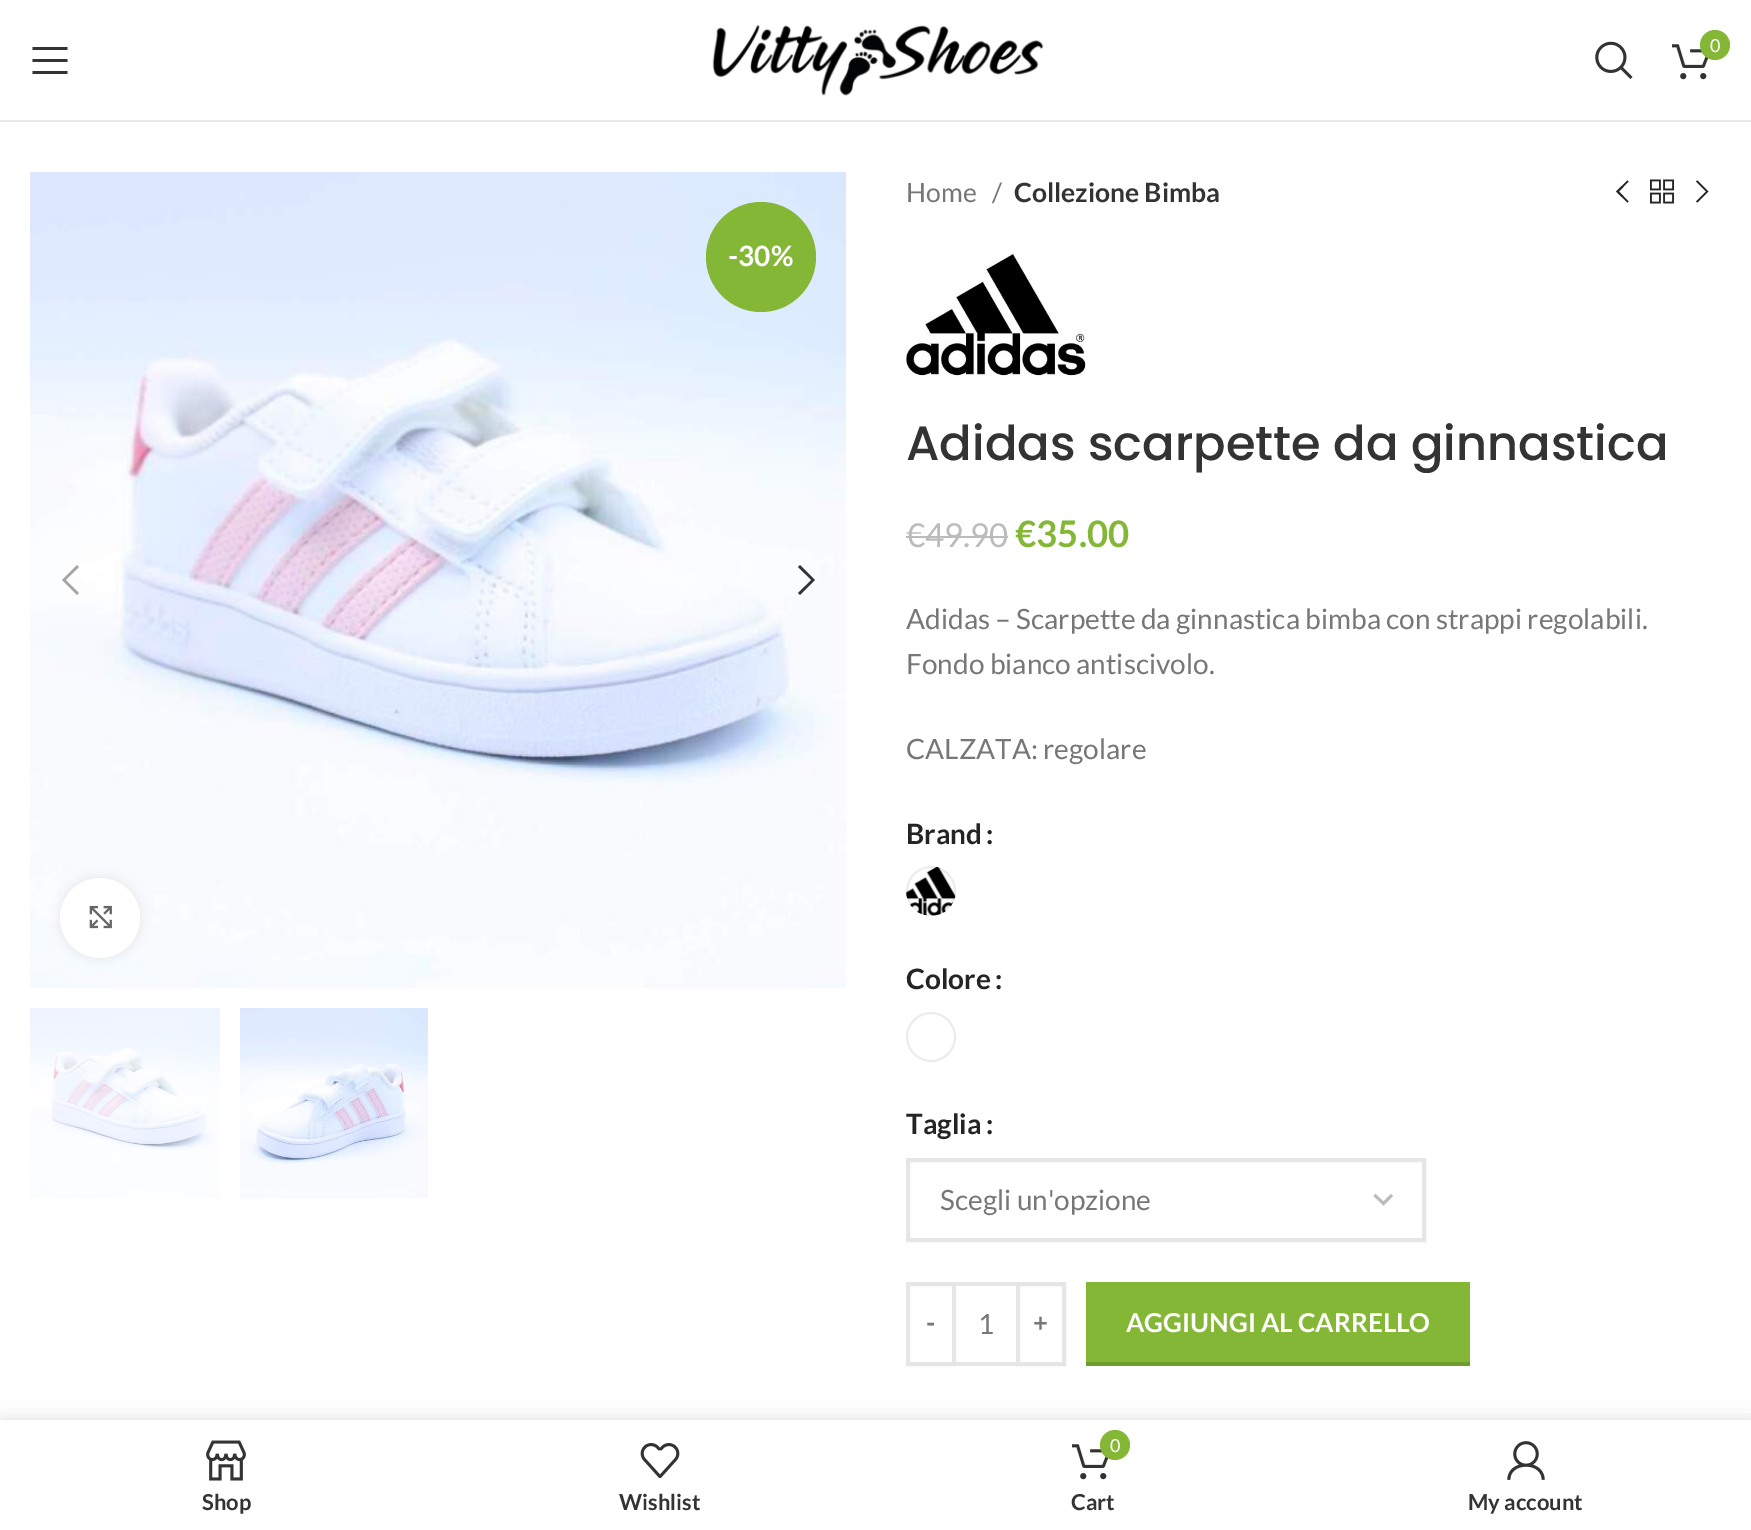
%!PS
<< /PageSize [1751 1530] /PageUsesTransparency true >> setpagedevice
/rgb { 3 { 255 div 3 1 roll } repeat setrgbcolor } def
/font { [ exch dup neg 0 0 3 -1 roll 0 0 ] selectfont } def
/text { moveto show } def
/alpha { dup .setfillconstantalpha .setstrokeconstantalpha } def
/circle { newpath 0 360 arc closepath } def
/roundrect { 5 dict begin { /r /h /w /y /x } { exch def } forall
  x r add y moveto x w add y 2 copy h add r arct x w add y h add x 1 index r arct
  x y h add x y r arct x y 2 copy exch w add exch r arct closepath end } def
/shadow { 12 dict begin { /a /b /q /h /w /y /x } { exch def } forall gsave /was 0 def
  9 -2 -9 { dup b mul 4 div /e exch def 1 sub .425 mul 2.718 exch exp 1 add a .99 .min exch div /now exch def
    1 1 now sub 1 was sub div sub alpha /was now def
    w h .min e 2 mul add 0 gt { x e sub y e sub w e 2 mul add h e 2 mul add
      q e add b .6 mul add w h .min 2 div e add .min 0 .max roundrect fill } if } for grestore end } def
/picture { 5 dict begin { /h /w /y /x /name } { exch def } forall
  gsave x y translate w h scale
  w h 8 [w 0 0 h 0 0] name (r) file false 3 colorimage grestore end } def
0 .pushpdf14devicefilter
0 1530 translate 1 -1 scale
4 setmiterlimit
255 255 255 rgb
0 0 1751 1530 rectfill
232 232 232 rgb
0 120 1751 2 rectfill
(img_01.rgb) 712 24 332 72 picture
(img_02.rgb) 1595 41 38 38 picture
(img_03.rgb) 1672 44 37 36 picture
131 183 53 rgb
1715 45 15 circle fill
51 51 51 rgb
32.5 50 moveto 35 0 rlineto 0 -3 rlineto -35 0 rlineto closepath 32.5 62 moveto 35 0 rlineto 0 -3 rlineto -35 0 rlineto closepath 32.5 74 moveto 35 0 rlineto 0 -3 rlineto -35 0 rlineto closepath fill
(img_04.rgb) 30 172 816 816 picture
131 183 53 rgb
761 257 55 circle fill
165 165 165 rgb
79 567 moveto -2 -2 rlineto -15 15 rlineto 15 15 rlineto 2 -2 rlineto -13.5 -13 rlineto closepath fill
51 51 51 rgb
798 567 moveto 13.5 13 rlineto -13.5 13 rlineto 2 2 rlineto 15 -15 rlineto -15 -15 rlineto closepath fill
0 0 0 rgb
60 878 80 80 40 5 0.08 shadow
255 255 255 rgb
100 918 40 circle fill
(img_05.rgb) 89 905 23 24 picture
(img_06.rgb) 30 1008 190 190 picture
(img_07.rgb) 240 1008 188 190 picture
36 36 36 rgb
1628.5 181.5 moveto -1 -1 rlineto -11.5 11 rlineto 11.5 11 rlineto 1 -1 rlineto -9.5 -10 rlineto closepath fill
(img_08.rgb) 1650 179 24 25 picture
1696 181.5 moveto 10 10 rlineto -10 10 rlineto 1.5 1 rlineto 11 -11 rlineto -11 -11 rlineto closepath fill
(img_09.rgb) 906 254 180 122 picture
187 187 187 rgb
906 536 20 2 rectfill
926 536 82 2 rectfill
(img_10.rgb) 906 866 50 50 picture
0.07 alpha
0 0 0 rgb
2 setlinewidth
931 891 24 circle stroke
1 alpha
236 236 236 rgb
931 1037 24 circle stroke
187 187 187 rgb
2.9 setlinewidth
1374.5 1195 moveto 9 8.5 rlineto 8.5 -8.5 rlineto stroke
230 230 230 rgb
4 setlinewidth
908 1160 516 80 rectstroke
908 1284 46 80 rectstroke
956 1282 60 4 rectfill
956 1362 60 4 rectfill
1018 1284 46 80 rectstroke
131 183 53 rgb
1086 1282 384 80 rectfill
111 156 45 rgb
1086 1362 384 4 rectfill
0 0 0 rgb
0 1420 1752 110 0 9 0.12 shadow
255 255 255 rgb
0 1420 1751 110 rectfill
(img_11.rgb) 206 1440 40 41 picture
(img_12.rgb) 640 1443 40 35 picture
(img_03.rgb) 1072 1444 37 36 picture
131 183 53 rgb
1115 1445 15 circle fill
(img_13.rgb) 1507 1441 38 39 picture
/Lato-Regular 18 font
255 255 255 rgb
(0) 1710 52 text
/Lato-Bold 28 font
(-30%) 728 266 text
/Lato-Regular 26.5 font
119 119 119 rgb
(Home) 906 202 text
(/) 992 202 text
/Lato-Bold 26.5 font
51 51 51 rgb
(Collezione Bimba) 1014 202 text
/Poppins-Medium 48 font
(Adidas scarpette da ginnastica) 906 460 text
/Lato-Regular 33 font
187 187 187 rgb
(€) 906 547 text
(49.90) 925 547 text
/Lato-Bold 36.5 font
131 183 53 rgb
(€35.00) 1015 547 text
/Lato-Regular 28 font
119 119 119 rgb
(Adidas – Scarpette da ginnastica bimba con strappi regolabili.) 906 629 text
(Fondo bianco antiscivolo.) 906 674 text
(CALZATA: regolare) 906 759 text
/Lato-Bold 28 font
36 36 36 rgb
(Brand) 906 844 text
(:) 986 844 text
(Colore) 906 989 text
(:) 995 989 text
(Taglia) 906 1134 text
(:) 986 1134 text
/Lato-Regular 28 font
119 119 119 rgb
(Scegli un'opzione) 940 1210 text
/Lato-Bold 26 font
(-) 926 1332 text
/Lato-Regular 28 font
(1) 978 1334 text
/Lato-Bold 26 font
(+) 1033 1332 text
255 255 255 rgb
(AGGIUNGI AL CARRELLO) 1126 1332 text
/Lato-Bold 22 font
51 51 51 rgb
(Shop) 202 1510 text
(Wishlist) 619 1510 text
/Lato-Regular 18 font
255 255 255 rgb
(0) 1110 1452 text
/Lato-Bold 22 font
51 51 51 rgb
(Cart) 1071 1510 text
(My account) 1468 1510 text
.poppdf14devicefilter showpage
